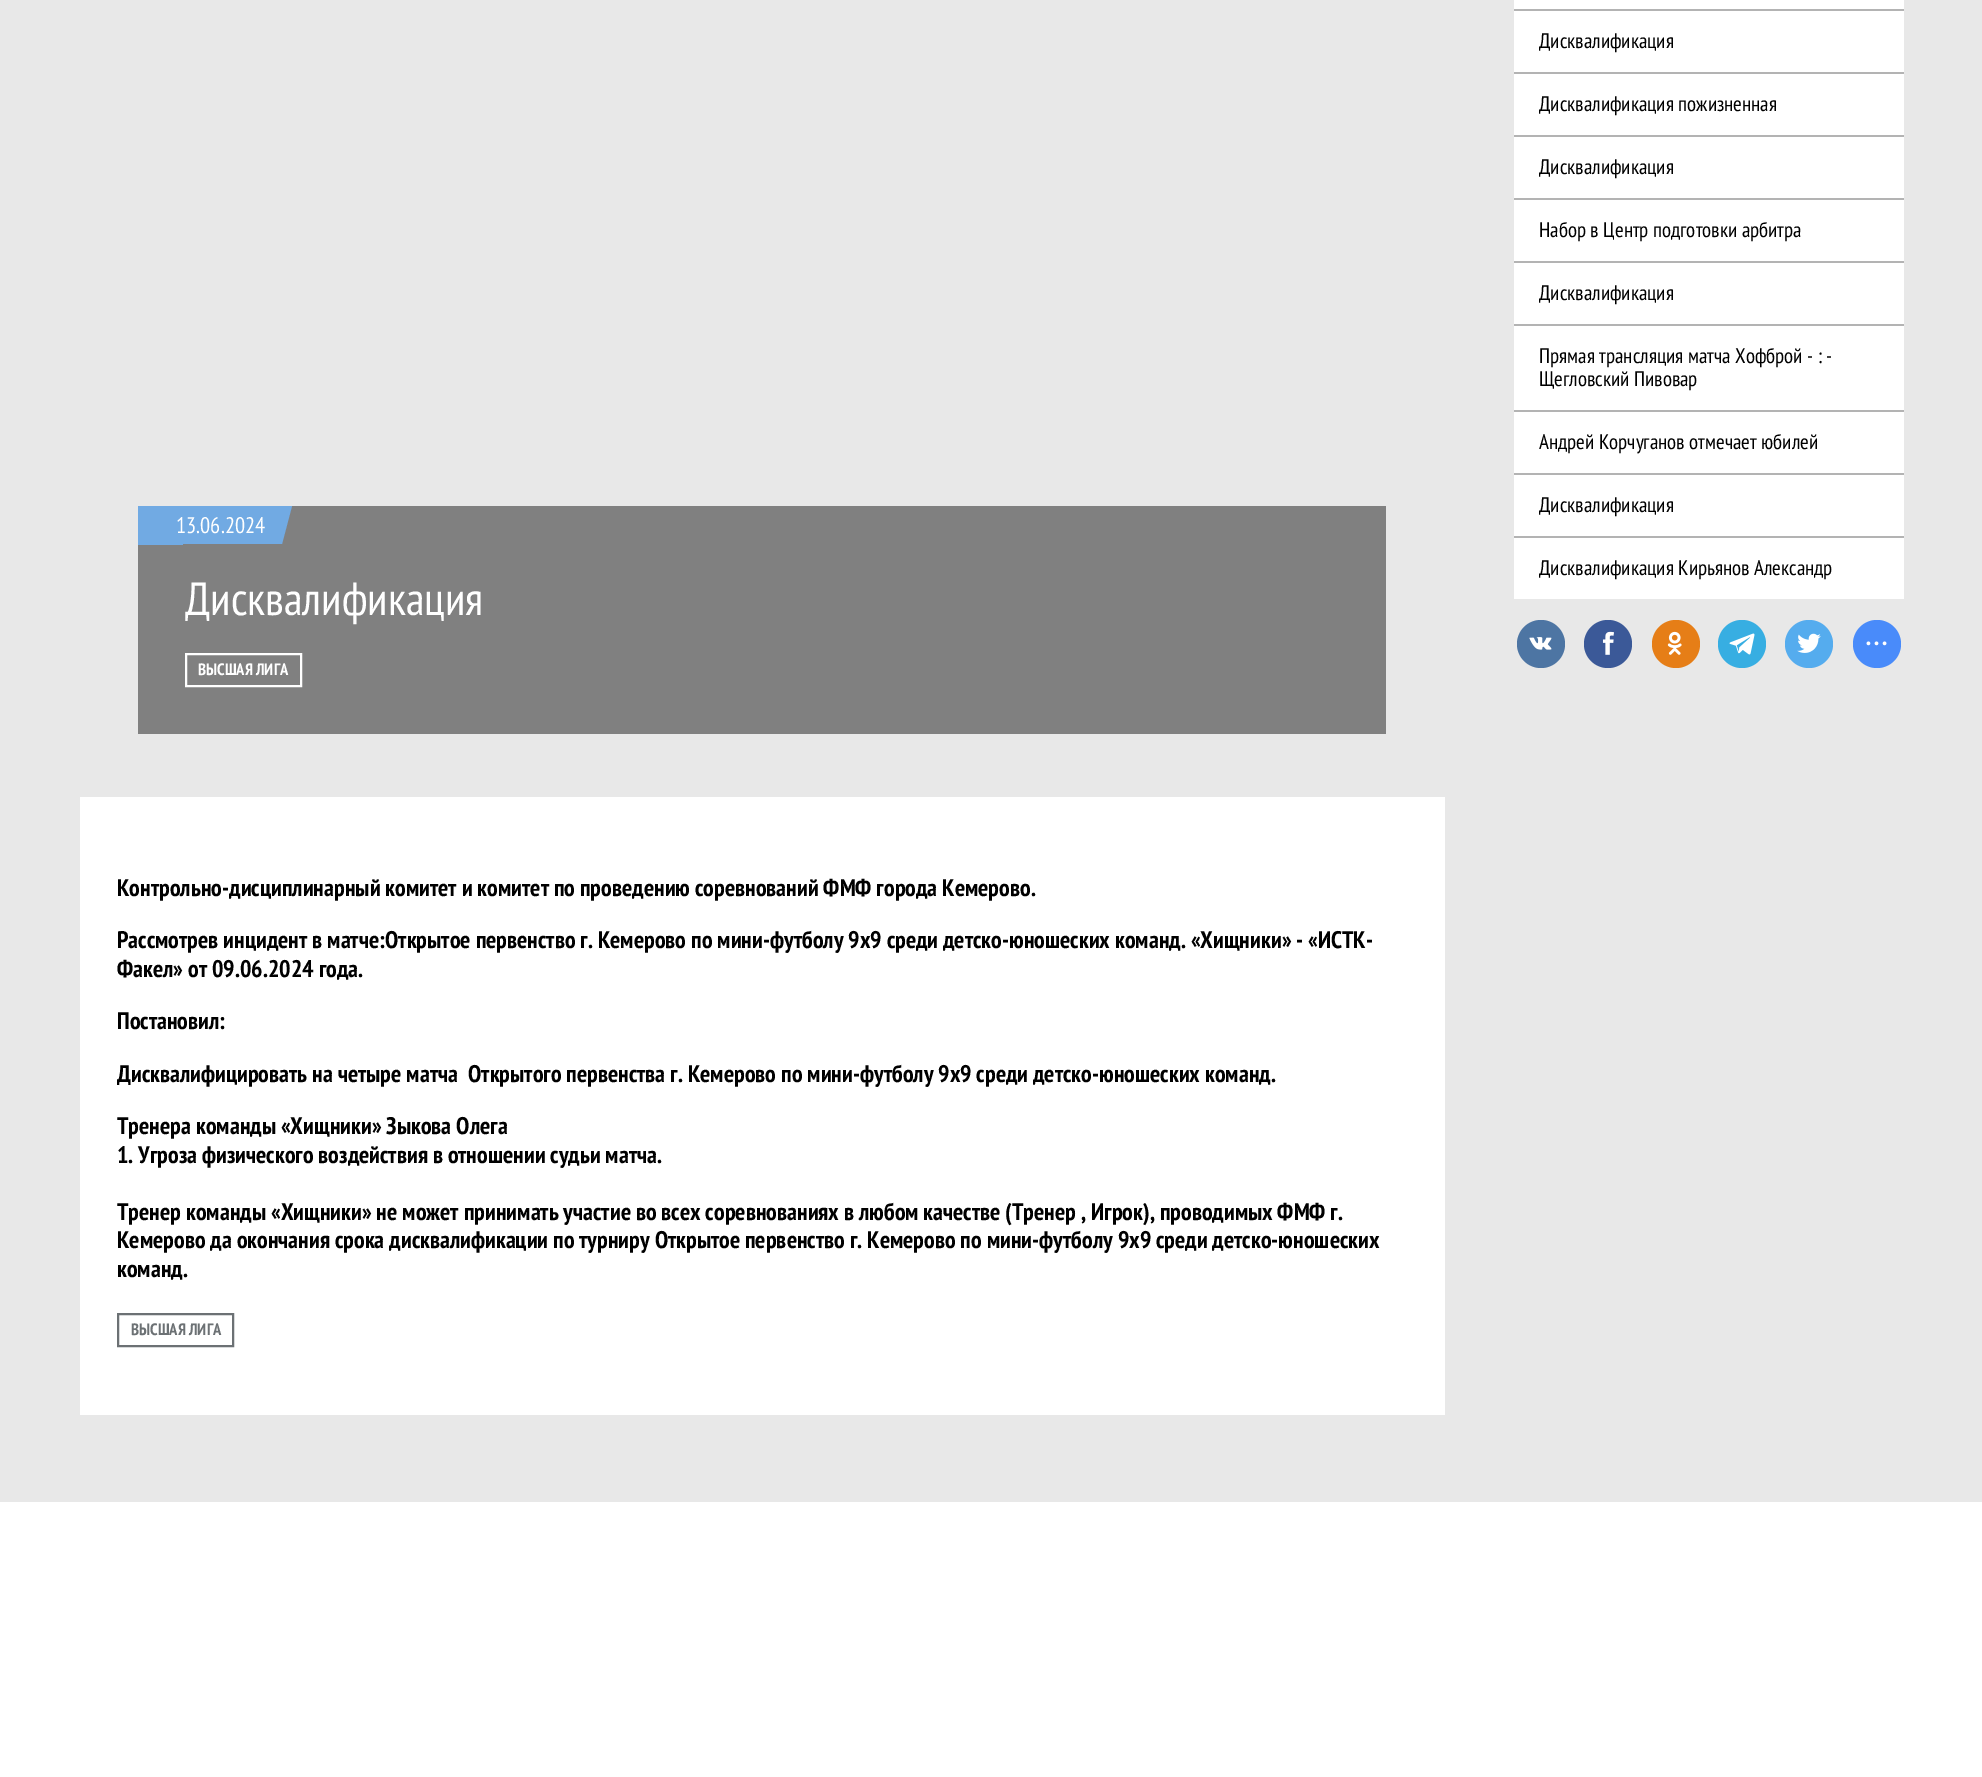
%!PS
<< /PageSize [1982 1777] >> setpagedevice
/rgb { 3 { 255 div 3 1 roll } repeat setrgbcolor } def
/font { [ exch dup neg 0 0 3 -1 roll 0 0 ] selectfont } def
/text { moveto show } def
/circle { newpath 0 360 arc closepath } def
/picture { 5 dict begin { /h /w /y /x /name } { exch def } forall
  gsave x y translate w h scale
  w h 8 [w 0 0 h 0 0] name (r) file false 3 colorimage grestore end } def
0 1777 translate 1 -1 scale
4 setmiterlimit
232 232 232 rgb
0 0 1982 1777 rectfill
255 255 255 rgb
1514 0 390 599 rectfill
179 179 179 rgb
1514 9 390 2 rectfill
1514 72 390 2 rectfill
1514 135 390 2 rectfill
1514 198 390 2 rectfill
1514 261 390 2 rectfill
1514 324 390 2 rectfill
1514 410 390 2 rectfill
1514 473 390 2 rectfill
1514 536 390 2 rectfill
77 117 163 rgb
1541 644 24 circle fill
(img_01.rgb) 1529 637 23 13 picture
59 89 152 rgb
1608 644 24 circle fill
(img_02.rgb) 1602 631 12 24 picture
230 126 23 rgb
1676 644 24 circle fill
(img_03.rgb) 1667 631 15 24 picture
55 174 226 rgb
1742 644 24 circle fill
(img_04.rgb) 1729 633 26 22 picture
85 172 238 rgb
1809 644 24 circle fill
(img_05.rgb) 1797 633 24 20 picture
73 139 250 rgb
1877 644 24 circle fill
(img_06.rgb) 1866 641 21 5 picture
128 128 128 rgb
138 506 1248 228 rectfill
113 170 227 rgb
138 506 45 39 rectfill
151 506 moveto 141 0 rlineto -10 38 rlineto -142 0 rlineto closepath fill
255 255 255 rgb
2 setlinewidth
186 654 115 32 rectstroke
80 797 1365 618 rectfill
108 113 116 rgb
118 1314 115 32 rectstroke
255 255 255 rgb
0 1502 1982 275 rectfill
/PTSansNarrow-Regular 21 font
0 0 0 rgb
(Дисквалификация) 1539 48 text
(Дисквалификация пожизненная) 1539 111 text
(Дисквалификация) 1539 174 text
(Набор в Центр подготовки арбитра) 1539 237 text
(Дисквалификация) 1539 300 text
(Прямая трансляция матча Хофброй - : -) 1539 363 text
(Щегловский Пивовар) 1539 386 text
(Андрей Корчуганов отмечает юбилей) 1539 449 text
(Дисквалификация) 1539 512 text
(Дисквалификация Кирьянов Александр) 1539 575 text
/PTSansNarrow-Regular 22.5 font
255 255 255 rgb
(13.06.2024) 176 533 text
/PTSansNarrow-Regular 46.5 font
(Дисквалификация) 185 615 text
/PTSansNarrow-Bold 16.5 font
(ВЫСШАЯ ЛИГА) 198 675 text
/PTSansNarrow-Bold 24 font
0 0 0 rgb
(Контрольно-дисциплинарный комитет и комитет по проведению соревнований ФМФ города Кемерово.) 117 896 text
(Рассмотрев инцидент в матче:Открытое первенство г. Кемерово по мини-футболу 9х9 среди детско-юношеских команд. «Хищники» - «ИСТК-) 117 948 text
(Факел» от 09.06.2024 года.) 117 977 text
(Постановил:) 117 1029 text
(Дисквалифицировать на четыре матча) 117 1082 text
(Открытого первенства г. Кемерово по мини-футболу 9х9 среди детско-юношеских команд.) 468 1082 text
(Тренера команды «Хищники» Зыкова Олега) 117 1134 text
(1. Угроза физического воздействия в отношении судьи матча.) 117 1163 text
(Тренер команды «Хищники» не может принимать участие во всех соревнованиях в любом качестве \(Тренер , Игрок\), проводимых ФМФ г.) 117 1220 text
(Кемерово да окончания срока дисквалификации по турниру Открытое первенство г. Кемерово по мини-футболу 9х9 среди детско-юношеских) 117 1248 text
(команд.) 117 1277 text
/PTSansNarrow-Bold 16.5 font
108 113 116 rgb
(ВЫСШАЯ ЛИГА) 131 1335 text
showpage
